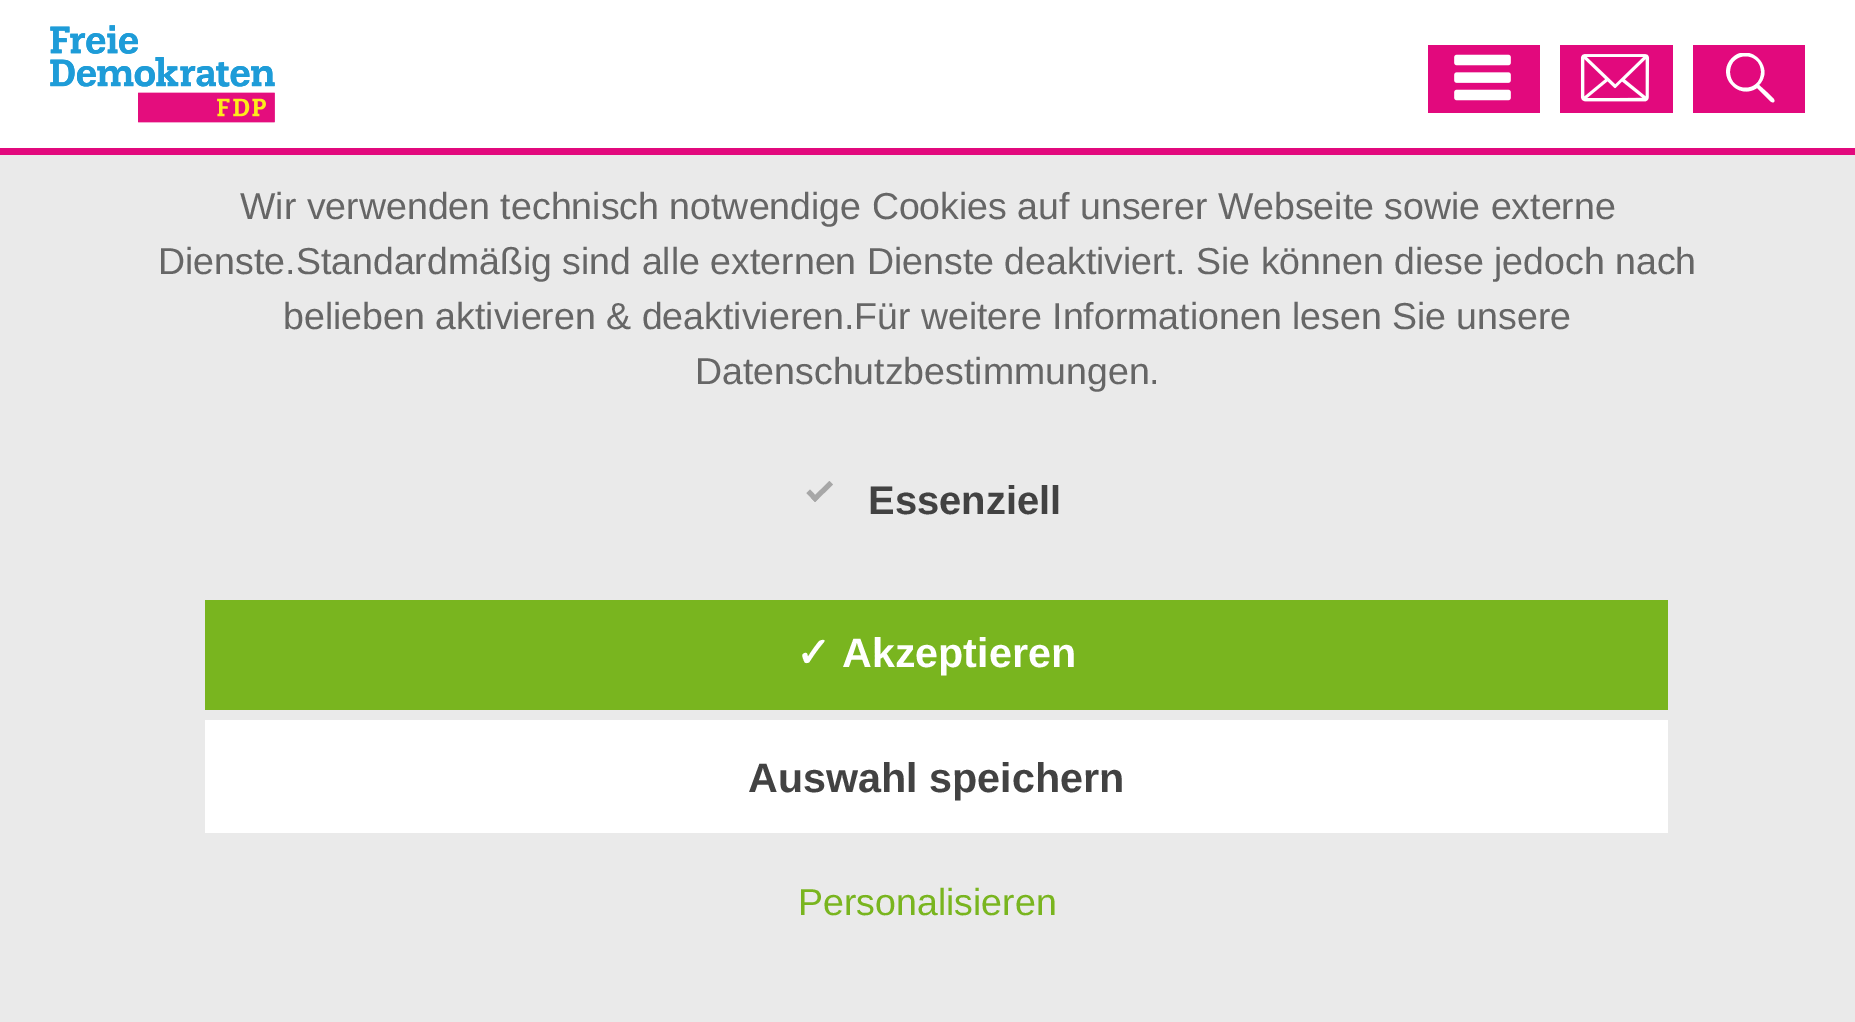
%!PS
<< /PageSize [1855 1022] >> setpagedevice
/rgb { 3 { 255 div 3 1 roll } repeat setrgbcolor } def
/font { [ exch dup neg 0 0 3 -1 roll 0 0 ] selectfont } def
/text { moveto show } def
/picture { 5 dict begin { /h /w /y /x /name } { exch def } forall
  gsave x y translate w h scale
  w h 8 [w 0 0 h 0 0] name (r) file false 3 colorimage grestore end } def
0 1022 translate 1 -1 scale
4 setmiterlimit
255 255 255 rgb
0 0 1855 1022 rectfill
(img_01.rgb) 50 25 225 98 picture
226 9 125 rgb
1428 45 112 68 rectfill
(img_02.rgb) 1454 54 57 47 picture
1560 45 113 68 rectfill
(img_03.rgb) 1580 54 70 48 picture
1693 45 112 68 rectfill
gsave
1725 53 50 50 rectclip
255 255 255 rgb
1759 85 moveto 17 -18 -10 -44 -27 -27 rcurveto -17 17 6 43 25 30 rcurveto 9 9 rlineto 1 0 5 7 8 5 rcurveto 2 -3 -4 -6 -5 -8 rcurveto closepath 1730 72 moveto 0 -21 31 -21 31 0 rcurveto 0 21 -31 21 -31 0 rcurveto closepath fill
grestore
0 148 1855 7 rectfill
234 234 234 rgb
0 155 1855 867 rectfill
167 167 167 rgb
829.5 481 moveto 3.5 3.5 rlineto -18 17.5 rlineto -3.5 -3.5 rlineto closepath fill
810 489.5 moveto 8.5 9 rlineto -3.5 3.5 rlineto -8.5 -9 rlineto closepath fill
121 181 31 rgb
205 600 1463 110 rectfill
255 255 255 rgb
205 720 1463 113 rectfill
/LiberationSans-Regular 37.5 font
102 102 102 rgb
(Wir verwenden technisch notwendige Cookies auf unserer Webseite sowie externe) 240 219 text
(Dienste.Standardmäßig sind alle externen Dienste deaktiviert. Sie können diese jedoch nach) 158 274 text
(belieben aktivieren & deaktivieren.Für weitere Informationen lesen Sie unsere) 283 329 text
(Datenschutzbestimmungen.) 695 384 text
/LiberationSans-Bold 40 font
66 66 66 rgb
(Essenziell) 868 514 text
/DejaVuSans-Bold 41.25 font
255 255 255 rgb
(✓) 796 667 text
/LiberationSans-Bold 41.25 font
(Akzeptieren) 842 667 text
66 66 66 rgb
(Auswahl speichern) 748 792 text
/LiberationSans-Regular 37.5 font
121 181 31 rgb
(Personalisieren) 798 915 text
showpage
